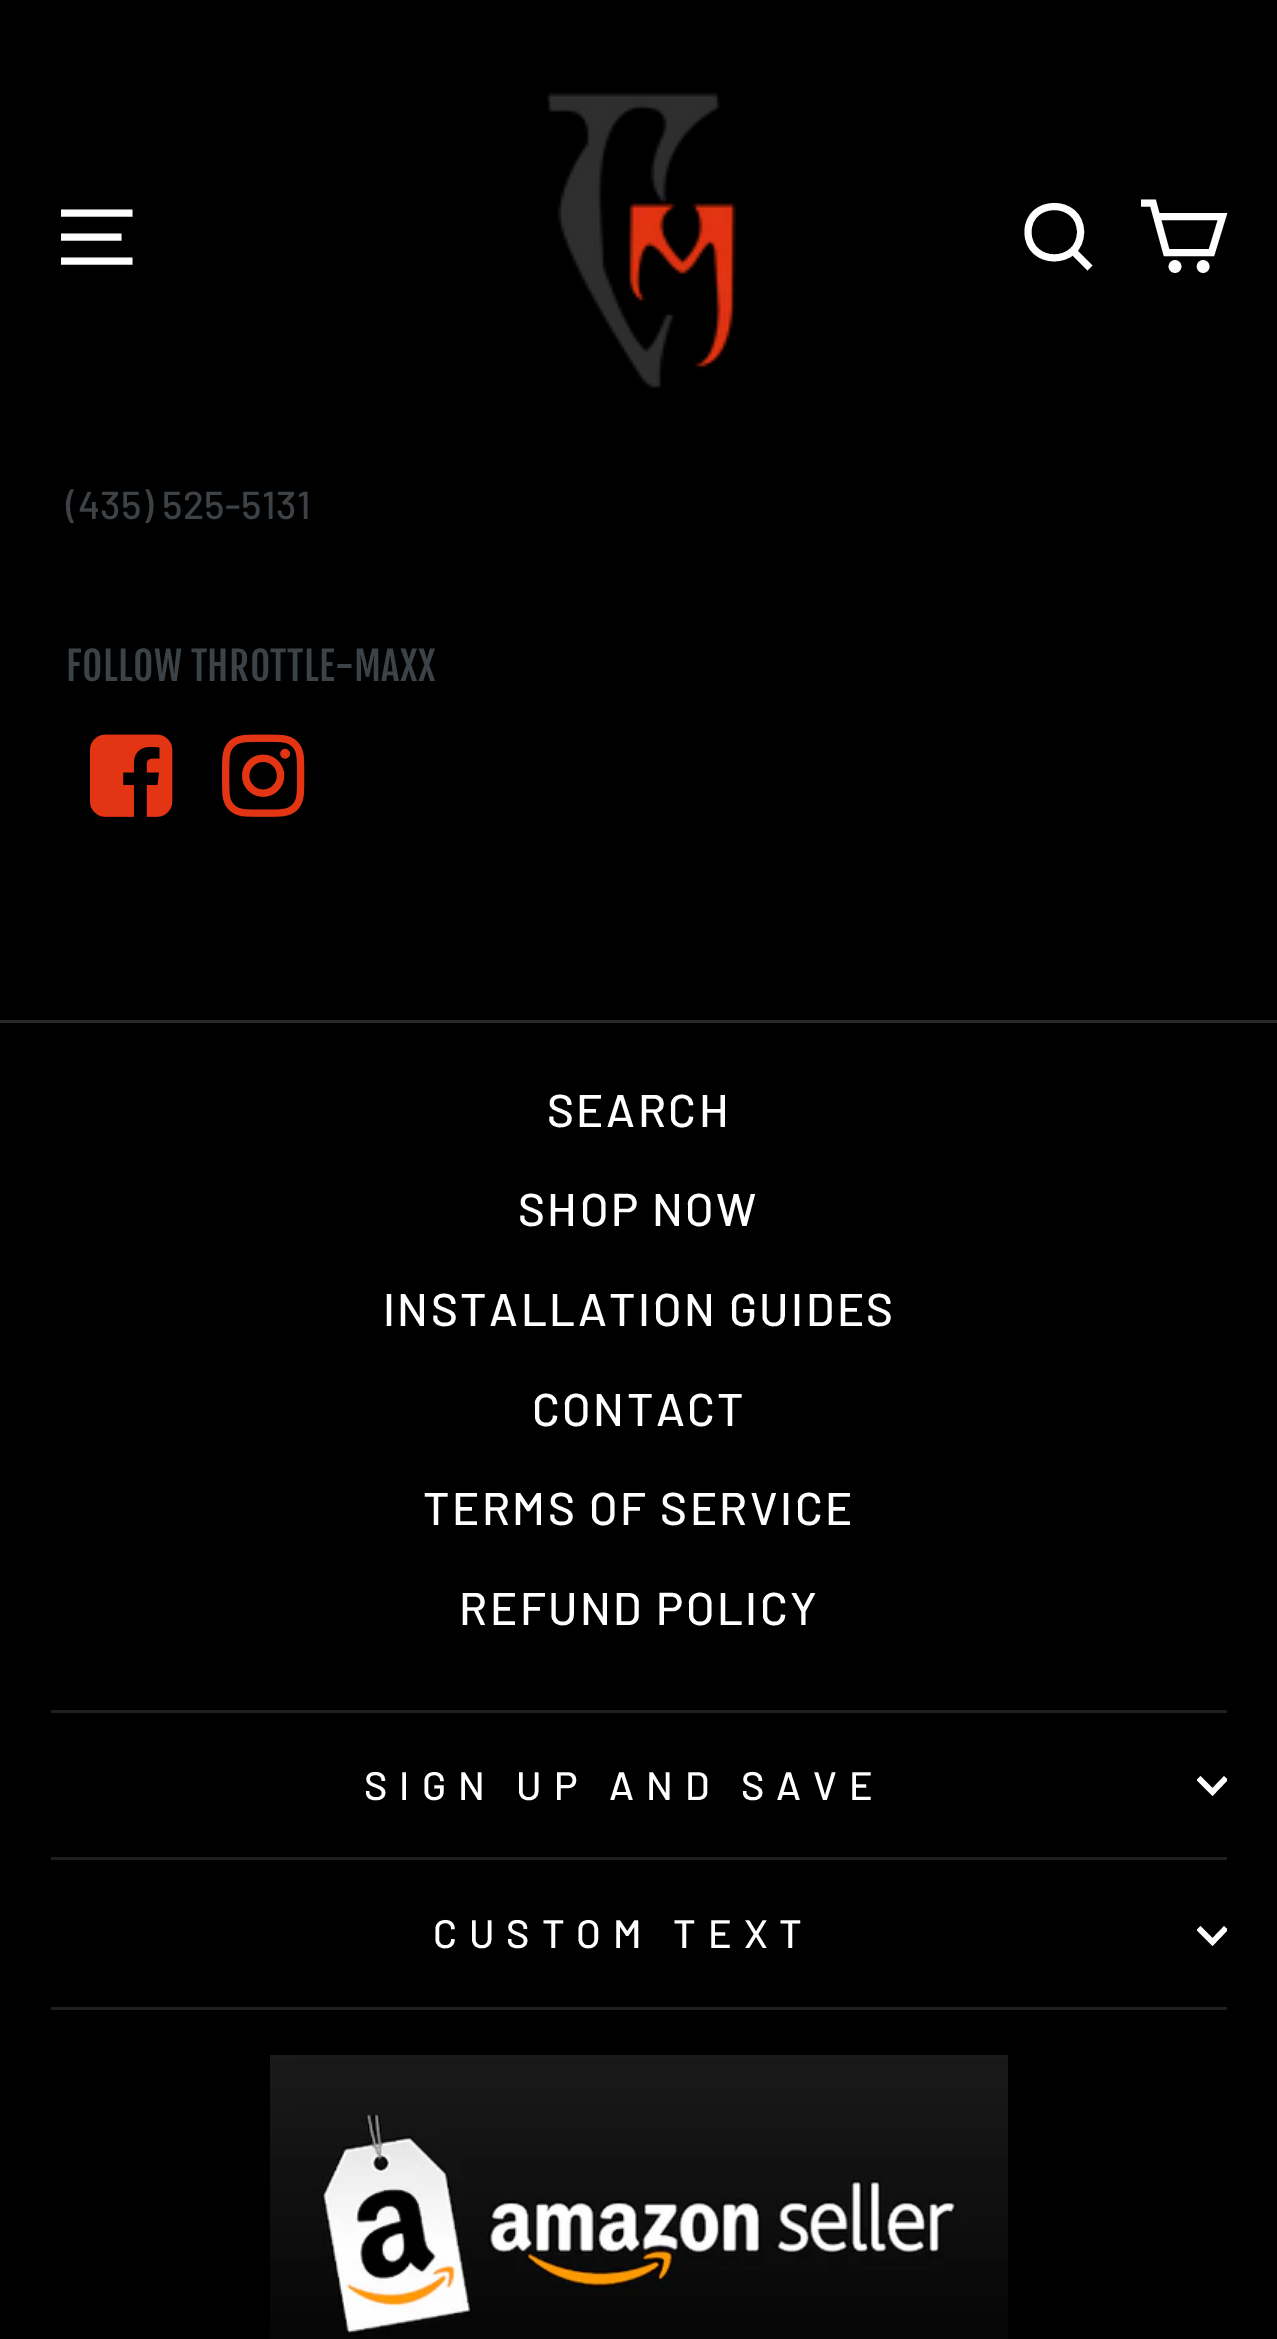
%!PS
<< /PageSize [1277 2339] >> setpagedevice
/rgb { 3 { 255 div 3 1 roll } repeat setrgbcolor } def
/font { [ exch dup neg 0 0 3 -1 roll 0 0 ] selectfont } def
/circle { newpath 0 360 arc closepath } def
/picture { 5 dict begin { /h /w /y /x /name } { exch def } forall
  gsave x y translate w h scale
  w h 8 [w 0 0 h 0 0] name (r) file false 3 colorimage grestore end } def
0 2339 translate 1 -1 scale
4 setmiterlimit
0 0 0 rgb
0 0 1277 2339 rectfill
255 255 255 rgb
7 setlinewidth
61 213 moveto 71.5 0 rlineto 61 237 moveto 60.5 0 rlineto 61 261 moveto 71.5 0 rlineto stroke
(img_01.rgb) 546 92 190 296 picture
1080.5 232 moveto 0 34.5 -52.5 34.5 -52.5 0 rcurveto 0 -34 52.5 -34 52.5 0 rcurveto closepath 1090 268 moveto -17 -17 rlineto stroke
1156.5 216.5 moveto 66 0 rlineto -11 36 rlineto -45 0 rlineto -13.5 -49.5 rlineto -12 0 rlineto stroke
1175 266.5 2.8 circle gsave fill grestore
stroke
1203.1 266.5 2.8 circle gsave fill grestore
stroke
(img_02.rgb) 90 734 83 83 picture
(img_03.rgb) 222 734 83 83 picture
43 42 39 rgb
0 1020 1277 3 rectfill
31 31 31 rgb
51 1710 1176 3 rectfill
gsave
1197 1770 30 30 rectclip
255 255 255 rgb
5.4 setlinewidth
1198.5 1778 moveto 14 14 rlineto 13.5 -14 rlineto stroke
grestore
51 1857 1176 3 rectfill
gsave
1197 1920 30 30 rectclip
255 255 255 rgb
5.4 setlinewidth
1198.5 1928 moveto 14 14 rlineto 13.5 -14 rlineto stroke
grestore
51 2007 1176 3 rectfill
(img_04.rgb) 270 2055 738 284 picture
/Barlow-Medium 39 font
61 66 70 rgb
66 519 moveto 0.4 0 (\(435\) 525-5131) ashow
/FjallaOne-Regular 39 font
66 681 moveto 0.4 0 (FOLLOW THROTTLE-MAXX) ashow
/Barlow-Medium 45.9 font
255 255 255 rgb
547 1127 moveto 2.5 0 (SEARCH) ashow
518 1226 moveto 2.5 0 (SHOP NOW) ashow
383 1326 moveto 2.5 0 (INSTALLATION GUIDES) ashow
532 1426 moveto 2.5 0 (CONTACT) ashow
423 1525 moveto 2.5 0 (TERMS OF SERVICE) ashow
459 1625 moveto 2.5 0 (REFUND POLICY) ashow
/Barlow-Medium 39.75 font
364 1800 moveto 11.9 0 (SIGN UP AND SAVE) ashow
433 1948 moveto 11.9 0 (CUSTOM TEXT) ashow
showpage
